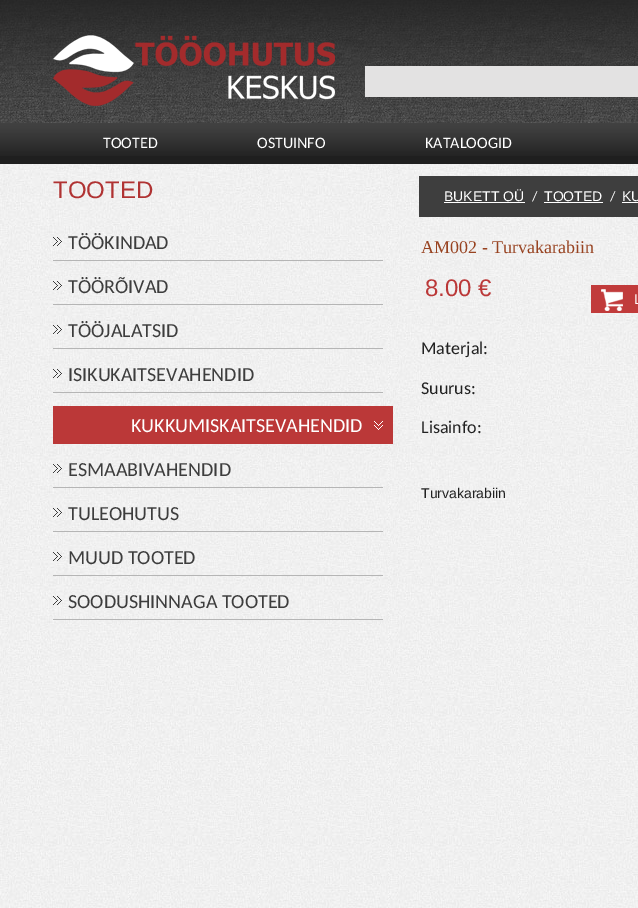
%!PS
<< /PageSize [638 908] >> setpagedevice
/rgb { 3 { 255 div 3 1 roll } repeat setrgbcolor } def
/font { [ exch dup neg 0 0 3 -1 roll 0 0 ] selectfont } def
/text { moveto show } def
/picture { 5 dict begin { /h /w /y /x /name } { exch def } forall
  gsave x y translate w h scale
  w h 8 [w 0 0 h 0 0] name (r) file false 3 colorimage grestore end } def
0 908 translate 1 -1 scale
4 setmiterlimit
255 255 255 rgb
0 0 638 908 rectfill
(img_01.rgb) 0 164 638 744 picture
(img_02.rgb) 0 0 638 123 picture
(img_03.rgb) 53 35 282 71 picture
227 226 226 rgb
365 66 273 31 rectfill
31 31 31 rgb
0 156 638 8 rectfill
(img_04.rgb) 0 123 638 33 picture
62 62 62 rgb
419 176 219 41 rectfill
255 255 255 rgb
444 202 81 1 rectfill
544 202 59 1 rectfill
622 202 16 1 rectfill
(img_05.rgb) 53 237 330 24 picture
(img_06.rgb) 53 281 330 24 picture
(img_07.rgb) 53 325 330 24 picture
(img_08.rgb) 53 369 330 24 picture
187 56 56 rgb
53 406 340 38 rectfill
(img_09.rgb) 374 421 9 9 picture
(img_10.rgb) 53 464 330 24 picture
(img_11.rgb) 53 508 330 24 picture
(img_12.rgb) 53 552 330 24 picture
(img_13.rgb) 53 596 330 24 picture
193 59 59 rgb
591 285 47 28 rectfill
(img_14.rgb) 601 289 22 22 picture
/Carlito-Regular 16 font
255 255 255 rgb
(TOOTED) 103 148 text
(OSTUINFO) 257 148 text
(KATALOOGID) 425 148 text
/LiberationSans-Regular 24 font
176 51 51 rgb
(TOOTED) 53 198 text
/LiberationSans-Regular 14 font
255 255 255 rgb
(BUKETT OÜ) 444 201 text
/Carlito-Regular 14 font
(/) 532 201 text
/LiberationSans-Regular 14 font
(TOOTED) 544 201 text
/Carlito-Regular 14 font
(/) 610 201 text
/LiberationSans-Regular 14 font
(KU) 622 201 text
/Carlito-Regular 20 font
61 61 61 rgb
(TÖÖKINDAD) 68 249 text
(TÖÖRÕIVAD) 68 293 text
(TÖÖJALATSID) 68 337 text
(ISIKUKAITSEVAHENDID) 68 381 text
255 255 255 rgb
(KUKKUMISKAITSEVAHENDID) 131 432 text
61 61 61 rgb
(ESMAABIVAHENDID) 68 476 text
(TULEOHUTUS) 68 520 text
(MUUD TOOTED) 68 564 text
(SOODUSHINNAGA TOOTED) 68 608 text
/LiberationSerif-Regular 18 font
152 67 33 rgb
(AM002 - Turvakarabiin) 421 253 text
/LiberationSans-Regular 24 font
187 56 56 rgb
(8.00 €) 425 296 text
/LiberationSans-Regular 14 font
255 255 255 rgb
(L) 634 304 text
/Carlito-Regular 18 font
34 34 34 rgb
(Materjal:) 421 354 text
(Suurus:) 421 394 text
(Lisainfo:) 421 433 text
/LiberationSans-Regular 14 font
(Turvakarabiin) 421 498 text
showpage
